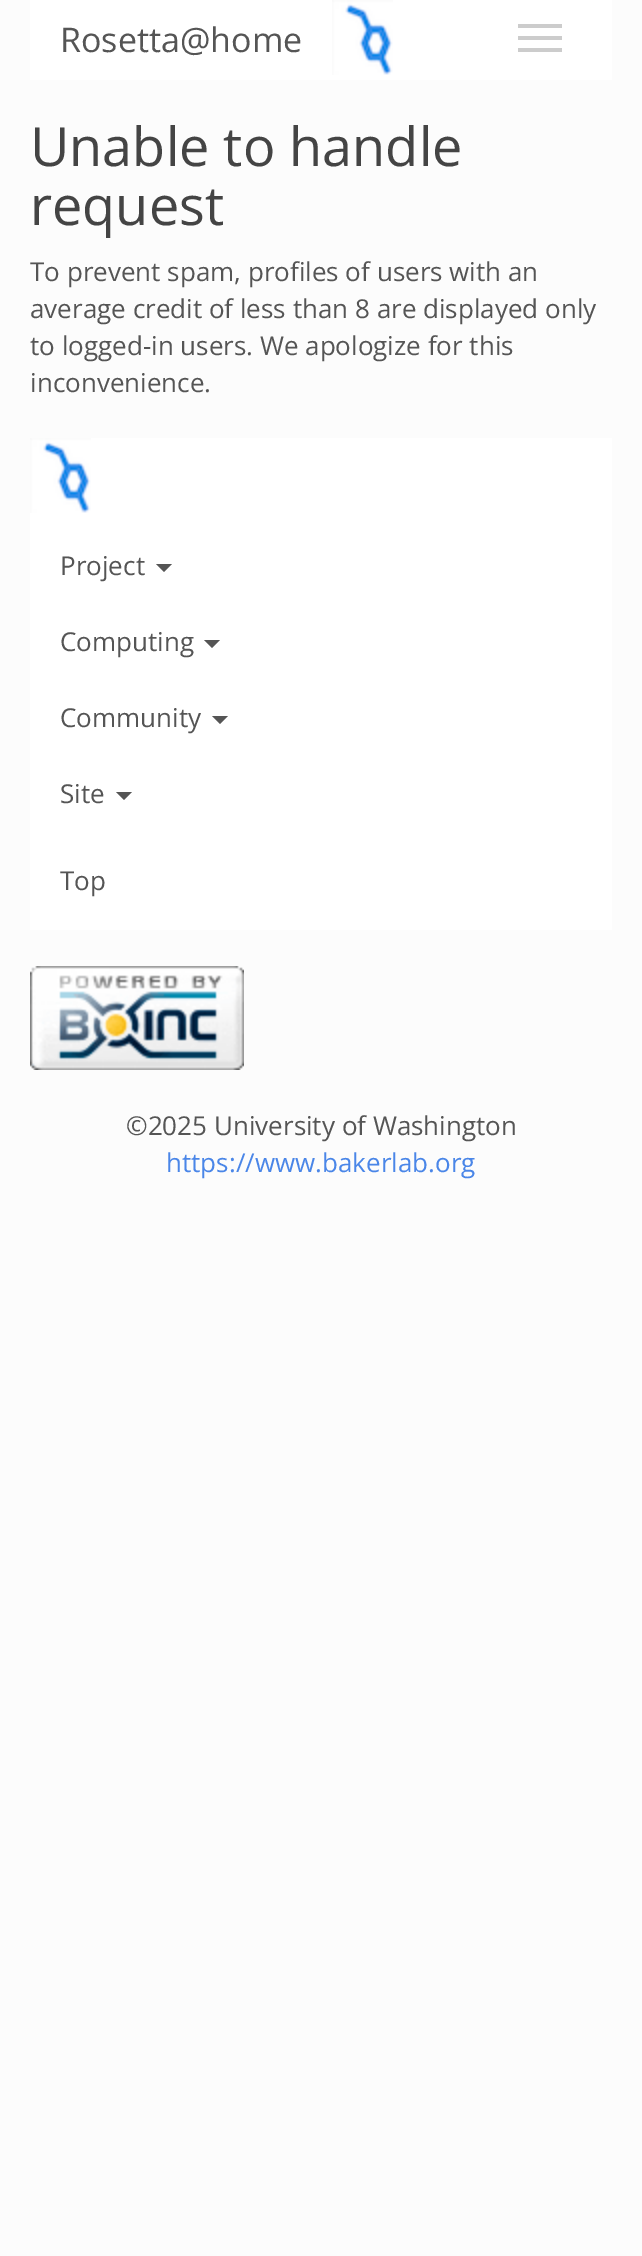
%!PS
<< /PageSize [642 2256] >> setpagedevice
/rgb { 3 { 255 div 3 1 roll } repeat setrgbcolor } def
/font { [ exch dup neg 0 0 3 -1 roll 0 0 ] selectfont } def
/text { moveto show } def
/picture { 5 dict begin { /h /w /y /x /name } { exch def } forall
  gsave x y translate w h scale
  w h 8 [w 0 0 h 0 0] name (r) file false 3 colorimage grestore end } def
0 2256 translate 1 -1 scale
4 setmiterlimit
252 252 252 rgb
0 0 642 2256 rectfill
255 255 255 rgb
30 0 582 80 rectfill
(img_01.rgb) 332 0 61 75 picture
204 204 204 rgb
518 24 44 4 rectfill
518 36 44 4 rectfill
518 48 44 4 rectfill
255 255 255 rgb
30 438 582 492 rectfill
(img_01.rgb) 30 438 61 75 picture
85 85 85 rgb
156 564 moveto 16 0 rlineto -8 8 rlineto closepath fill
204 640 moveto 16 0 rlineto -8 8 rlineto closepath fill
212 716 moveto 16 0 rlineto -8 8 rlineto closepath fill
116 792 moveto 16 0 rlineto -8 8 rlineto closepath fill
(img_02.rgb) 30 966 214 104 picture
/OpenSans-Regular 34 font
(Rosetta@home) 60 52 text
/OpenSans-Regular 54 font
68 68 68 rgb
(Unable to handle) 30 166 text
(request) 30 225 text
/OpenSans-Regular 26 font
85 85 85 rgb
(To prevent spam, profiles of users with an) 30 281 text
(average credit of less than 8 are displayed only) 30 318 text
(to logged-in users. We apologize for this) 30 355 text
(inconvenience.) 30 392 text
(Project) 60 575 text
(Computing) 60 651 text
(Community) 60 727 text
(Site) 60 803 text
(Top) 60 890 text
(©2025 University of Washington) 126 1135 text
74 134 232 rgb
(https://www.bakerlab.org) 166 1172 text
showpage
